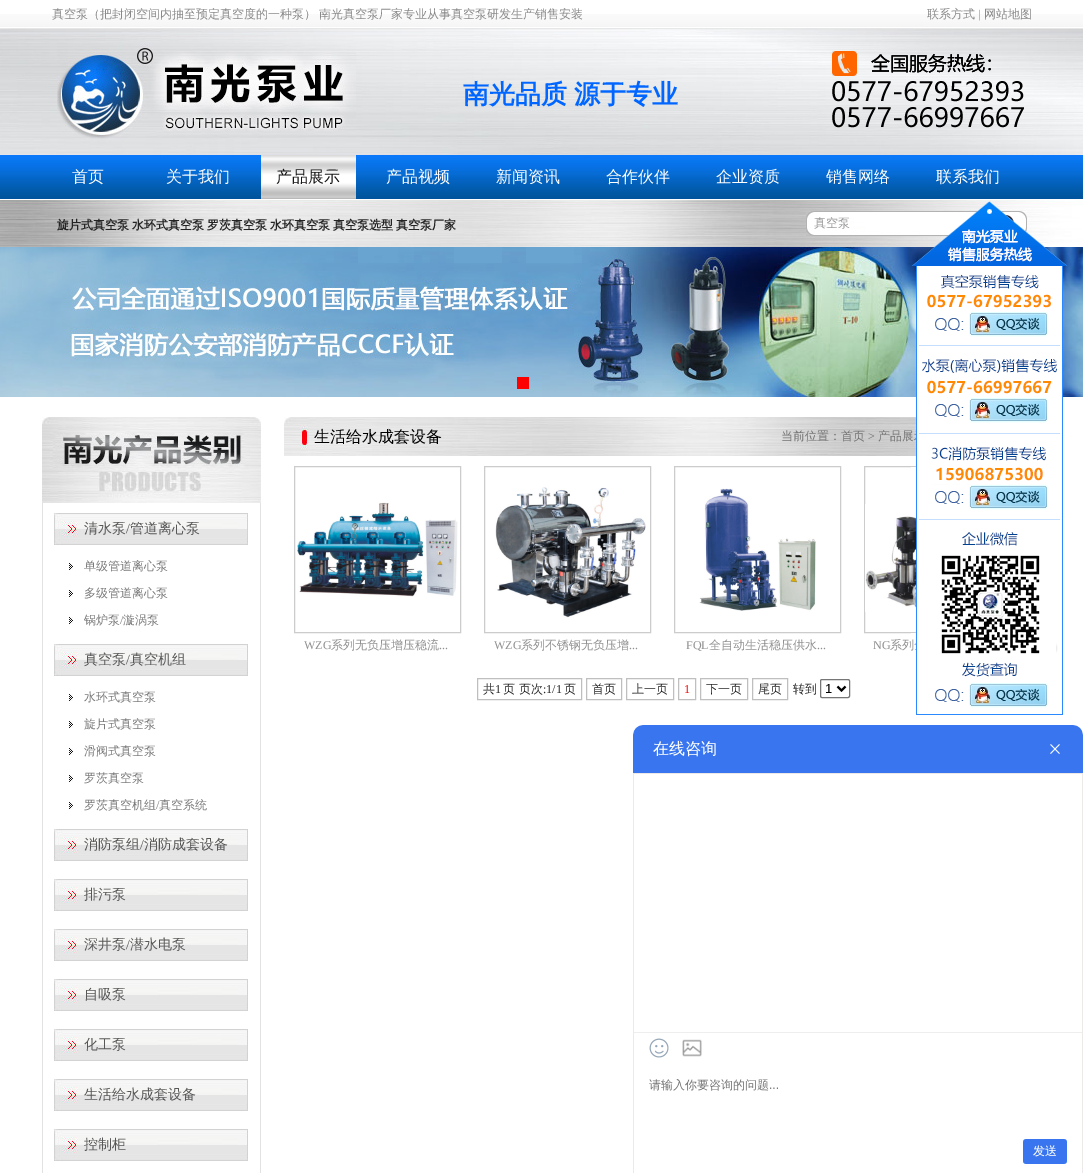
%!PS
<< /PageSize [1083 1173] >> setpagedevice
/rgb { 3 { 255 div 3 1 roll } repeat setrgbcolor } def
/font { [ exch dup neg 0 0 3 -1 roll 0 0 ] selectfont } def
/text { moveto show } def
/roundrect { 5 dict begin { /r /h /w /y /x } { exch def } forall
  x r add y moveto x w add y 2 copy h add r arct x w add y h add x 1 index r arct
  x y h add x y r arct x y 2 copy exch w add exch r arct closepath end } def
/picture { 5 dict begin { /h /w /y /x /name } { exch def } forall
  gsave x y translate w h scale
  w h 8 [w 0 0 h 0 0] name (r) file false 3 colorimage grestore end } def
0 1173 translate 1 -1 scale
4 setmiterlimit
255 255 255 rgb
0 0 1083 1173 rectfill
(img_01.rgb) 0 14 1083 13 picture
(img_02.rgb) 0 28 1083 127 picture
(img_03.rgb) 57 43 299 96 picture
(img_04.rgb) 832 51 192 77 picture
(img_05.rgb) 0 155 1083 44 picture
(img_06.rgb) 261 155 95 44 picture
(img_07.rgb) 0 200 1083 47 picture
(img_08.rgb) 806 211 221 25 picture
(img_10.rgb) 0 247 1083 150 picture
255 0 0 rgb
517 377 12 12 rectfill
(img_11.rgb) 42 417 219 86 picture
226 226 226 rgb
260 503 1 670 rectfill
42 503 1 670 rectfill
(img_12.rgb) 54 513 194 32 picture
(img_13.rgb) 69 563 4 7 picture
(img_13.rgb) 69 590 4 7 picture
(img_13.rgb) 69 617 4 7 picture
(img_12.rgb) 54 644 194 32 picture
(img_13.rgb) 69 694 4 7 picture
(img_13.rgb) 69 721 4 7 picture
(img_13.rgb) 69 748 4 7 picture
(img_13.rgb) 69 775 4 7 picture
(img_13.rgb) 69 802 4 7 picture
(img_12.rgb) 54 829 194 32 picture
(img_12.rgb) 54 879 194 32 picture
(img_12.rgb) 54 929 194 32 picture
(img_12.rgb) 54 979 194 32 picture
(img_12.rgb) 54 1029 194 32 picture
(img_12.rgb) 54 1079 194 32 picture
(img_12.rgb) 54 1129 194 32 picture
(img_14.rgb) 284 417 632 39 picture
204 204 204 rgb
294.5 466.5 166 166 rectstroke
(img_15.rgb) 297 502 161 95 picture
484.5 466.5 166 166 rectstroke
(img_16.rgb) 495 487 151 131 picture
674.5 466.5 166 166 rectstroke
(img_17.rgb) 699 488 117 123 picture
864.5 466.5 166 166 rectstroke
(img_18.rgb) 865 504 51 108 picture
191 191 191 rgb
477.5 678.5 104 21 rectstroke
586.5 678.5 35 21 rectstroke
626.5 678.5 47 21 rectstroke
678.5 678.5 17 21 rectstroke
700.5 678.5 47 21 rectstroke
752.5 678.5 35 21 rectstroke
118 118 118 rgb
820.5 679.5 29 18 1.5 roundrect stroke
0 0 0 rgb
2 setlinewidth
837.5 686.5 moveto 4 4 rlineto 4 -4 rlineto stroke
(img_19.rgb) 633 725 450 448 picture
/WenQuanYiZenHei-Medium 12 font
137 137 137 rgb
52 18 moveto -0.5 0 32 (真空泵（把封闭空间内抽至预定真空度的一种泵） 南光真空泵厂家专业从事真空泵研发生产销售安装) widthshow
(联系方式) 927 18 text
/LiberationSerif-Regular 12 font
(|) 978 18 text
/WenQuanYiZenHei-Medium 12 font
(网站地图) 984 18 text
/WenQuanYiZenHei-Bold 26 font
0 102 255 rgb
(南光品质) 463 103 text
(源于专业) 574 103 text
/WenQuanYiZenHei-Medium 16 font
255 255 255 rgb
(首页) 72 182 text
(关于我们) 166 182 text
24 22 23 rgb
(产品展示) 276 182 text
255 255 255 rgb
(产品视频) 386 182 text
(新闻资讯) 496 182 text
(合作伙伴) 606 182 text
(企业资质) 716 182 text
(销售网络) 826 182 text
(联系我们) 936 182 text
/WenQuanYiZenHei-Bold 12 font
37 36 36 rgb
57 229 moveto -0.5 0 32 (旋片式真空泵 水环式真空泵 罗茨真空泵 水环真空泵 真空泵选型 真空泵厂家) widthshow
/WenQuanYiZenHei-Medium 12 font
153 153 153 rgb
(真空泵) 814 227 text
/WenQuanYiZenHei-Medium 14 font
87 87 87 rgb
(清水泵) 84 533 text
/LiberationSerif-Regular 14 font
(/) 126 533 text
/WenQuanYiZenHei-Medium 14 font
(管道离心泵) 130 533 text
/WenQuanYiZenHei-Medium 12 font
123 123 123 rgb
(单级管道离心泵) 84 570 text
(多级管道离心泵) 84 597 text
(锅炉泵) 84 624 text
/LiberationSerif-Regular 12 font
(/) 120 624 text
/WenQuanYiZenHei-Medium 12 font
(漩涡泵) 123 624 text
/WenQuanYiZenHei-Medium 14 font
87 87 87 rgb
(真空泵) 84 664 text
/LiberationSerif-Regular 14 font
(/) 126 664 text
/WenQuanYiZenHei-Medium 14 font
(真空机组) 130 664 text
/WenQuanYiZenHei-Medium 12 font
123 123 123 rgb
(水环式真空泵) 84 701 text
(旋片式真空泵) 84 728 text
(滑阀式真空泵) 84 755 text
(罗茨真空泵) 84 782 text
(罗茨真空机组) 84 809 text
/LiberationSerif-Regular 12 font
(/) 156 809 text
/WenQuanYiZenHei-Medium 12 font
(真空系统) 159 809 text
/WenQuanYiZenHei-Medium 14 font
87 87 87 rgb
(消防泵组) 84 849 text
/LiberationSerif-Regular 14 font
(/) 140 849 text
/WenQuanYiZenHei-Medium 14 font
(消防成套设备) 144 849 text
(排污泵) 84 899 text
(深井泵) 84 949 text
/LiberationSerif-Regular 14 font
(/) 126 949 text
/WenQuanYiZenHei-Medium 14 font
(潜水电泵) 130 949 text
(自吸泵) 84 999 text
(化工泵) 84 1049 text
(生活给水成套设备) 84 1099 text
(控制柜) 84 1149 text
/WenQuanYiZenHei-Medium 16 font
0 0 0 rgb
(生活给水成套设备) 314 442 text
/WenQuanYiZenHei-Medium 12 font
115 115 115 rgb
(当前位置：首页) 781 440 text
/LiberationSerif-Regular 12 font
(>) 868 440 text
/WenQuanYiZenHei-Medium 12 font
(产品展) 878 440 text
/LiberationSerif-Regular 12 font
145 145 145 rgb
(WZG) 304 649 text
/WenQuanYiZenHei-Medium 12 font
(系列无负压增压稳流) 331 649 text
/LiberationSerif-Regular 12 font
(...) 439 649 text
(WZG) 494 649 text
/WenQuanYiZenHei-Medium 12 font
(系列不锈钢无负压增) 521 649 text
/LiberationSerif-Regular 12 font
(...) 629 649 text
(FQL) 686 649 text
/WenQuanYiZenHei-Medium 12 font
(全自动生活稳压供水) 709 649 text
/LiberationSerif-Regular 12 font
(...) 817 649 text
(NG) 873 649 text
/WenQuanYiZenHei-Medium 12 font
(系列) 890 649 text
(img_09.rgb) 911 201 157 514 picture
37 36 36 rgb
(共) 483 693 text
/LiberationSerif-Regular 12 font
(1) 495 693 text
/WenQuanYiZenHei-Medium 12 font
(页 页次) 503 693 text
/LiberationSerif-Regular 12 font
(:1/1) 543 693 text
/WenQuanYiZenHei-Medium 12 font
(页) 564 693 text
(首页) 592 693 text
(上一页) 632 693 text
/LiberationSerif-Regular 12 font
255 0 0 rgb
(1) 684 693 text
/WenQuanYiZenHei-Medium 12 font
37 36 36 rgb
(下一页) 706 693 text
(尾页) 758 693 text
(转到) 793 693 text
/LiberationSans-Regular 13 font
0 0 0 rgb
(1) 825 693 text
showpage
